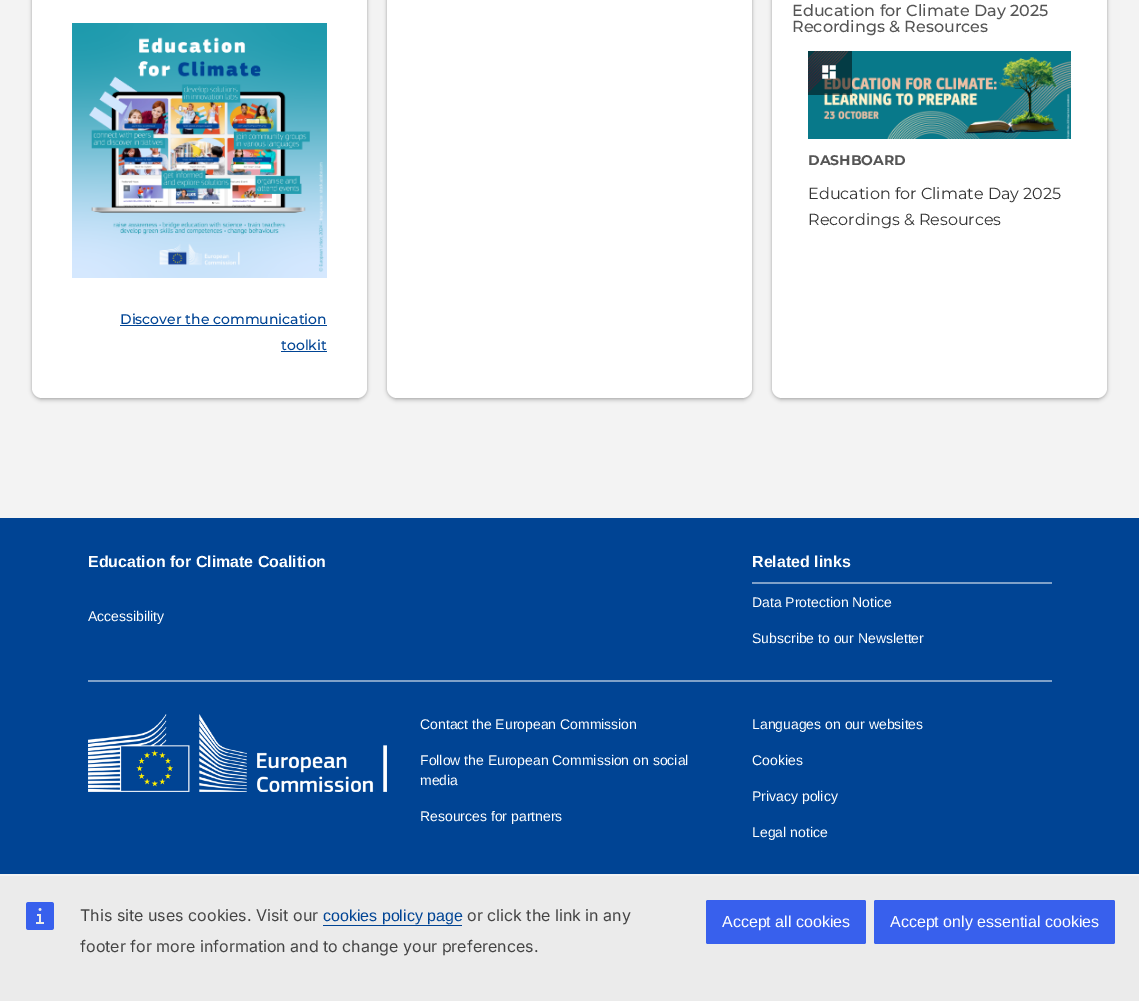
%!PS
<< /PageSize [1139 1001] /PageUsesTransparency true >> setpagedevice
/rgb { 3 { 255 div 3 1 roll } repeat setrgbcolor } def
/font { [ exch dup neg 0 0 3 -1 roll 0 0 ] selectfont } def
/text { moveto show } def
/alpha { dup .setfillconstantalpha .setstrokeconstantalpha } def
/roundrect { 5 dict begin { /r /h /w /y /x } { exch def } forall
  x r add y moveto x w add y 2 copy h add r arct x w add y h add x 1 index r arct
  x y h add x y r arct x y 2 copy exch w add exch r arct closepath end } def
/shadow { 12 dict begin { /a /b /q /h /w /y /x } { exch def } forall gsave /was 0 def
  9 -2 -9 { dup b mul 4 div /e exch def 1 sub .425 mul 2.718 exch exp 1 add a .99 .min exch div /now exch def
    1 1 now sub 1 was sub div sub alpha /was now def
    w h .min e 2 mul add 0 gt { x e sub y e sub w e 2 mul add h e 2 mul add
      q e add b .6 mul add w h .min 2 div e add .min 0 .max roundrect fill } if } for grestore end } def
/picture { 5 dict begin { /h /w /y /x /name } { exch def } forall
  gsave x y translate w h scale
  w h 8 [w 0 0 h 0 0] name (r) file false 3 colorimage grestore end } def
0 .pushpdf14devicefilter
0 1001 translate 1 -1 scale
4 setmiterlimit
243 243 243 rgb
0 0 1139 1001 rectfill
0 0 0 rgb
387 -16 365 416 10 2 0.24 shadow
387 -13 365 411 10 1 0.12 shadow
255 255 255 rgb
387 -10 365 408 10 roundrect fill
0 0 0 rgb
772 -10 335 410 10 2 0.24 shadow
772 -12 335 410 10 1 0.12 shadow
255 255 255 rgb
772 -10 335 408 10 roundrect fill
(img_01.rgb) 808 51 263 88 picture
0.5 alpha
0 0 0 rgb
808 51 44 44 rectfill
1 alpha
(img_02.rgb) 822 65 14 14 picture
32 -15 335 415 10 2 0.24 shadow
32 -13 335 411 10 1 0.12 shadow
255 255 255 rgb
32 -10 335 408 10 roundrect fill
(img_03.rgb) 72 23 255 255 picture
0 68 148 rgb
120 325 207 1 rectfill
281 351 46 1 rectfill
0 518 1139 356 rectfill
127 161 201 rgb
88 680 964 2 rectfill
752 582 300 2 rectfill
(img_04.rgb) 88 714 299 78 picture
235 235 235 rgb
0 876 1139 125 rectfill
(img_05.rgb) 26 902 28 28 picture
0 68 148 rgb
323 925 139 1 rectfill
56 96 237 rgb
706 900 160 44 2 roundrect fill
874 900 241 44 2 roundrect fill
/Montserrat-Medium 16 font
85 85 85 rgb
(Education for Climate Day 2025) 792 16 text
(Recordings & Resources) 792 32 text
/Montserrat-Bold 14 font
(DASHBOARD) 808 165 text
/Montserrat-Regular 16 font
52 52 52 rgb
(Education for Climate Day 2025) 808 199 text
(Recordings & Resources) 808 225 text
/Montserrat-Medium 14 font
0 68 148 rgb
(Discover the communication) 120 324 text
(toolkit) 281 350 text
/LiberationSans-Bold 16 font
255 255 255 rgb
(Education for Climate Coalition) 88 567 text
/LiberationSans-Regular 14 font
(Accessibility) 88 621 text
/LiberationSans-Bold 16 font
(Related links) 752 567 text
/LiberationSans-Regular 14 font
(Data Protection Notice) 752 607 text
(Subscribe to our Newsletter) 752 643 text
(Contact the European Commission) 420 729 text
(Follow the European Commission on social) 420 765 text
(media) 420 785 text
(Resources for partners) 420 821 text
(Languages on our websites) 752 729 text
(Cookies) 752 765 text
(Privacy policy) 752 801 text
(Legal notice) 752 837 text
/Inter-Regular 16 font
68 68 68 rgb
(This site uses cookies. Visit our) 80 921 text
/LiberationSans-Regular 16 font
0 68 148 rgb
(cookies policy page) 323 921 text
/Inter-Regular 16 font
68 68 68 rgb
(or click the link in any) 467 921 text
(footer for more information and to change your preferences.) 80 952 text
/LiberationSans-Regular 16 font
255 255 255 rgb
(Accept all cookies) 722 927 text
(Accept only essential cookies) 890 927 text
.poppdf14devicefilter showpage
